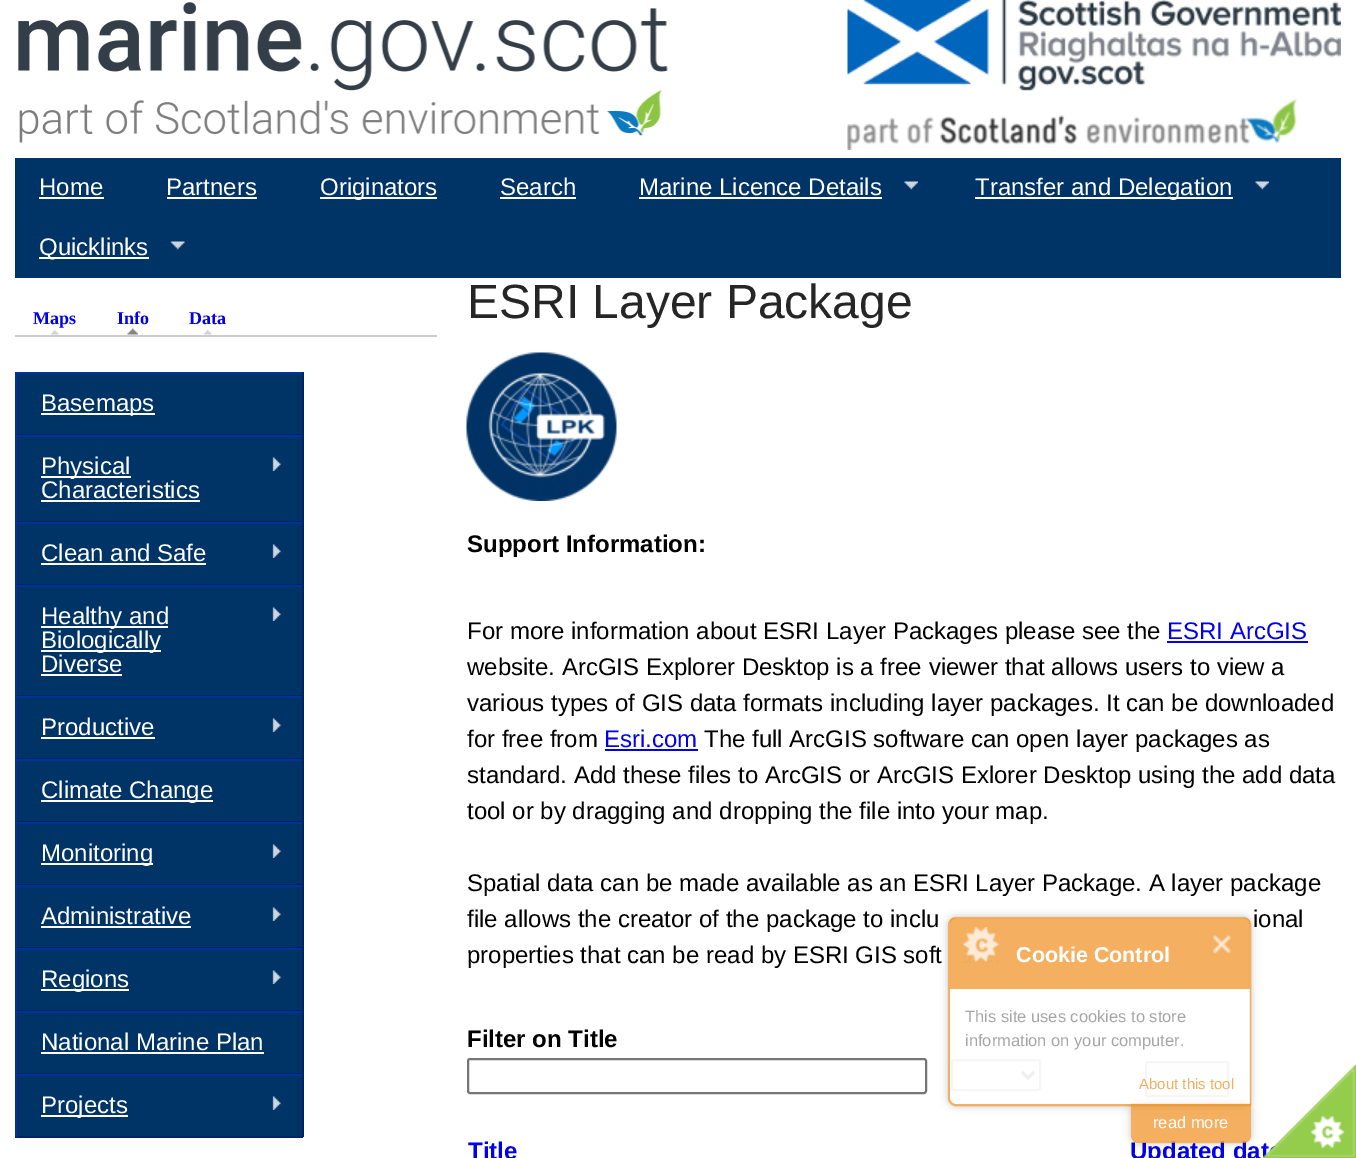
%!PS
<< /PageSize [1356 1158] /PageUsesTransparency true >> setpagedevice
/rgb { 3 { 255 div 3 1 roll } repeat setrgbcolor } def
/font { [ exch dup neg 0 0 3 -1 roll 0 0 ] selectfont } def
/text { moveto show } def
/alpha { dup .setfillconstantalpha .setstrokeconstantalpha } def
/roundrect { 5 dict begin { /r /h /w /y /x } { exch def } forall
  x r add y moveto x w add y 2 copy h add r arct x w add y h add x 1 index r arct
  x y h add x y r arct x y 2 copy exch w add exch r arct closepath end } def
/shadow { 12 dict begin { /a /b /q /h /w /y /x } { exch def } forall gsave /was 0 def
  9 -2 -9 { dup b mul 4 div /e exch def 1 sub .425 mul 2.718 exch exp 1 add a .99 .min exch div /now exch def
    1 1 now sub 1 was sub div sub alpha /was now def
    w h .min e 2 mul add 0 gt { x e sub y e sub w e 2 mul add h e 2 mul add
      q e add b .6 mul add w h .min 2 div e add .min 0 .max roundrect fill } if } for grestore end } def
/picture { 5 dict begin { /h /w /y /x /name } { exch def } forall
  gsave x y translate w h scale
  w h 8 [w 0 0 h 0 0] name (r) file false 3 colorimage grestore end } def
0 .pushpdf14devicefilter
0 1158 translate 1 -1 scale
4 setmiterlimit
255 255 255 rgb
0 0 1356 1158 rectfill
(img_01.rgb) 18 2 650 141 picture
(img_02.rgb) 847 0 494 150 picture
0 51 102 rgb
15 158 1326 120 rectfill
255 255 255 rgb
39 197 65 2 rectfill
167 197 90 2 rectfill
320 197 117 2 rectfill
500 197 76 2 rectfill
639 197 243 2 rectfill
(img_03.rgb) 904 181 14 9 picture
975 197 258 2 rectfill
(img_04.rgb) 1255 181 14 9 picture
39 257 110 2 rectfill
(img_05.rgb) 170 241 15 9 picture
204 204 204 rgb
15 335 422 2 rectfill
(img_06.rgb) 50 330 9 5 picture
(img_07.rgb) 127 328 11 7 picture
(img_06.rgb) 203 330 9 5 picture
0 51 102 rgb
17 374 285 60 rectfill
0 51 153 rgb
15 372 288 2 rectfill
0 34 102 rgb
302 372 2 63 rectfill
15 434 288 1 rectfill
0 51 153 rgb
15 372 2 63 rectfill
255 255 255 rgb
41 413 114 2 rectfill
0 51 102 rgb
17 437 285 84 rectfill
0 51 153 rgb
15 435 288 2 rectfill
0 34 102 rgb
302 435 2 87 rectfill
15 521 288 1 rectfill
0 51 153 rgb
15 435 2 87 rectfill
255 255 255 rgb
41 476 90 2 rectfill
(img_08.rgb) 272 457 9 14 picture
41 500 159 2 rectfill
0 51 102 rgb
17 524 285 60 rectfill
0 51 153 rgb
15 522 288 2 rectfill
0 34 102 rgb
302 522 2 63 rectfill
15 584 288 1 rectfill
0 51 153 rgb
15 522 2 63 rectfill
255 255 255 rgb
41 563 165 2 rectfill
(img_08.rgb) 272 544 9 14 picture
0 51 102 rgb
17 587 285 108 rectfill
0 51 153 rgb
15 585 288 2 rectfill
0 34 102 rgb
302 585 2 111 rectfill
15 695 288 1 rectfill
0 51 153 rgb
15 585 2 111 rectfill
255 255 255 rgb
41 626 127 2 rectfill
(img_08.rgb) 272 607 9 14 picture
41 650 120 2 rectfill
41 674 81 2 rectfill
0 51 102 rgb
17 698 285 60 rectfill
0 51 153 rgb
15 696 288 2 rectfill
0 34 102 rgb
302 696 2 63 rectfill
15 758 288 1 rectfill
0 51 153 rgb
15 696 2 63 rectfill
255 255 255 rgb
41 737 114 2 rectfill
(img_08.rgb) 272 718 9 14 picture
0 51 102 rgb
17 761 285 60 rectfill
0 51 153 rgb
15 759 288 2 rectfill
0 34 102 rgb
302 759 2 63 rectfill
15 821 288 1 rectfill
0 51 153 rgb
15 759 2 63 rectfill
255 255 255 rgb
41 800 172 2 rectfill
0 51 102 rgb
17 824 285 60 rectfill
0 51 153 rgb
15 822 288 2 rectfill
0 34 102 rgb
302 822 2 63 rectfill
15 884 288 1 rectfill
0 51 153 rgb
15 822 2 63 rectfill
255 255 255 rgb
41 863 112 2 rectfill
(img_08.rgb) 272 844 9 14 picture
0 51 102 rgb
17 887 285 60 rectfill
0 51 153 rgb
15 885 288 2 rectfill
0 34 102 rgb
302 885 2 63 rectfill
15 947 288 1 rectfill
0 51 153 rgb
15 885 2 63 rectfill
255 255 255 rgb
41 926 150 2 rectfill
(img_08.rgb) 272 907 9 14 picture
0 51 102 rgb
17 950 285 60 rectfill
0 51 153 rgb
15 948 288 2 rectfill
0 34 102 rgb
302 948 2 63 rectfill
15 1010 288 1 rectfill
0 51 153 rgb
15 948 2 63 rectfill
255 255 255 rgb
41 989 88 2 rectfill
(img_08.rgb) 272 970 9 14 picture
0 51 102 rgb
17 1013 285 60 rectfill
0 51 153 rgb
15 1011 288 2 rectfill
0 34 102 rgb
302 1011 2 63 rectfill
15 1073 288 1 rectfill
0 51 153 rgb
15 1011 2 63 rectfill
255 255 255 rgb
41 1052 223 2 rectfill
0 51 102 rgb
17 1076 285 60 rectfill
0 51 153 rgb
15 1074 288 2 rectfill
0 34 102 rgb
302 1074 2 63 rectfill
15 1136 288 2 rectfill
0 51 153 rgb
15 1074 2 63 rectfill
255 255 255 rgb
41 1115 87 2 rectfill
(img_08.rgb) 272 1096 9 14 picture
(img_09.rgb) 466 352 151 149 picture
0 0 238 rgb
1167 641 141 2 rectfill
605 749 93 2 rectfill
118 118 118 rgb
2 setlinewidth
468 1059 458 34 2 roundrect stroke
952 1060 88 30 2 roundrect stroke
0 0 0 rgb
3 setlinewidth
1022 1072 moveto 6 6 rlineto 6 -6 rlineto stroke
239 239 239 rgb
1146 1062 82 34 2 roundrect gsave fill grestore
118 118 118 rgb
2 setlinewidth
stroke
/LiberationSans-Regular 24 font
255 255 255 rgb
(Home) 39 195 text
(Partners) 166 195 text
(Originators) 320 195 text
(Search) 500 195 text
(Marine Licence Details) 639 195 text
(Transfer and Delegation) 975 195 text
(Quicklinks) 39 255 text
/LiberationSerif-Bold 18 font
0 0 238 rgb
(Maps) 33 324 text
(Info) 117 324 text
(Data) 189 324 text
/LiberationSans-Regular 24 font
255 255 255 rgb
(Basemaps) 41 411 text
(Physical) 41 474 text
(Characteristics) 41 498 text
(Clean and Safe) 41 561 text
(Healthy and) 41 624 text
(Biologically) 41 648 text
(Diverse) 41 672 text
(Productive) 41 735 text
(Climate Change) 41 798 text
(Monitoring) 41 861 text
(Administrative) 41 924 text
(Regions) 41 987 text
(National Marine Plan) 41 1050 text
(Projects) 41 1113 text
/LiberationSans-Regular 48 font
38 38 38 rgb
(ESRI Layer Package) 467 318 text
/LiberationSans-Bold 24 font
0 0 0 rgb
(Support Information:) 467 552 text
/LiberationSans-Regular 24 font
(For more information about ESRI Layer Packages please see the) 467 639 text
0 0 238 rgb
(ESRI ArcGIS) 1167 639 text
0 0 0 rgb
(website. ArcGIS Explorer Desktop is a free viewer that allows users to view a) 467 675 text
(various types of GIS data formats including layer packages. It can be downloaded) 467 711 text
(for free from) 467 747 text
0 0 238 rgb
(Esri.com) 604 747 text
0 0 0 rgb
(The full ArcGIS software can open layer packages as) 704 747 text
(standard. Add these files to ArcGIS or ArcGIS Exlorer Desktop using the add data) 467 783 text
(tool or by dragging and dropping the file into your map.) 467 819 text
(Spatial data can be made available as an ESRI Layer Package. A layer package) 467 891 text
(file allows the creator of the package to inclu) 467 927 text
(ional) 1253 927 text
(properties that can be read by ESRI GIS soft) 467 963 text
/LiberationSans-Bold 24 font
(Filter on Title) 467 1047 text
0 0 238 rgb
(Title) 468 1159 text
(Updated dat) 1130 1159 text
(img_12.rgb) 1263 1065 93 93 picture
gsave
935 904 moveto 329 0 rlineto 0 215 rlineto -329 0 rlineto closepath 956 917 moveto 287 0 rlineto 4.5 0 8 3.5 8 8 rcurveto 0 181 rlineto -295 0 rlineto -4.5 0 -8 -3.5 -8 -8 rcurveto 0 -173 rlineto 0 -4.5 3.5 -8 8 -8 rcurveto closepath eoclip newpath
0 0 0 rgb
948 917 303 189 8 4 0.23 shadow
grestore
0.75 alpha
255 255 255 rgb
956 917 moveto 287 0 rlineto 4.5 0 8 3.5 8 8 rcurveto 0 181 rlineto -295 0 rlineto -4.5 0 -8 -3.5 -8 -8 rcurveto 0 -173 rlineto 0 -4.5 3.5 -8 8 -8 rcurveto closepath fill
240 148 43 rgb
956 918 moveto 287 0 rlineto 4 0 7 3 7 7 rcurveto 0 180 rlineto -294 0 rlineto -4 0 -7 -3 -7 -7 rcurveto 0 -173 rlineto 0 -4 3 -7 7 -7 rcurveto closepath stroke
gsave
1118 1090 moveto 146 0 rlineto 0 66 rlineto -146 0 rlineto closepath 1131 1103 moveto 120 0 rlineto 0 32 rlineto 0 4.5 -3.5 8 -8 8 rcurveto -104 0 rlineto -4.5 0 -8 -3.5 -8 -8 rcurveto closepath eoclip newpath
1 alpha
0 0 0 rgb
1131 1103 120 40 8 4 0.23 shadow
grestore
1131 1103 moveto 120 0 rlineto 0 32 rlineto 0 4.5 -3.5 8 -8 8 rcurveto -104 0 rlineto -4.5 0 -8 -3.5 -8 -8 rcurveto closepath fill
255 255 255 rgb
958 918 moveto 284 0 rlineto 4.5 0 8 3.5 8 8 rcurveto 0 178 rlineto -292 0 rlineto -4.5 0 -8 -3.5 -8 -8 rcurveto 0 -170 rlineto 0 -4.5 3.5 -8 8 -8 rcurveto closepath fill
240 148 43 rgb
955 918 moveto 290 0 rlineto 3 0 5 2 5 5 rcurveto 0 66 rlineto -300 0 rlineto 0 -66 rlineto 0 -3 2 -5 5 -5 rcurveto closepath fill
1 alpha
(img_11.rgb) 1213 935 18 19 picture
/LiberationSans-Regular 15 font
243 174 95 rgb
(About this tool) 1139 1089 text
/LiberationSans-Regular 16.5 font
166 166 166 rgb
(information on your computer.) 965 1046 text
(This site uses cookies to store) 965 1022 text
/LiberationSans-Bold 21.5 font
255 255 255 rgb
(Cookie Control) 1016 962 text
(img_10.rgb) 963 927 37 36 picture
/LiberationSans-Regular 16.5 font
(read more) 1153 1128 text
.poppdf14devicefilter showpage
